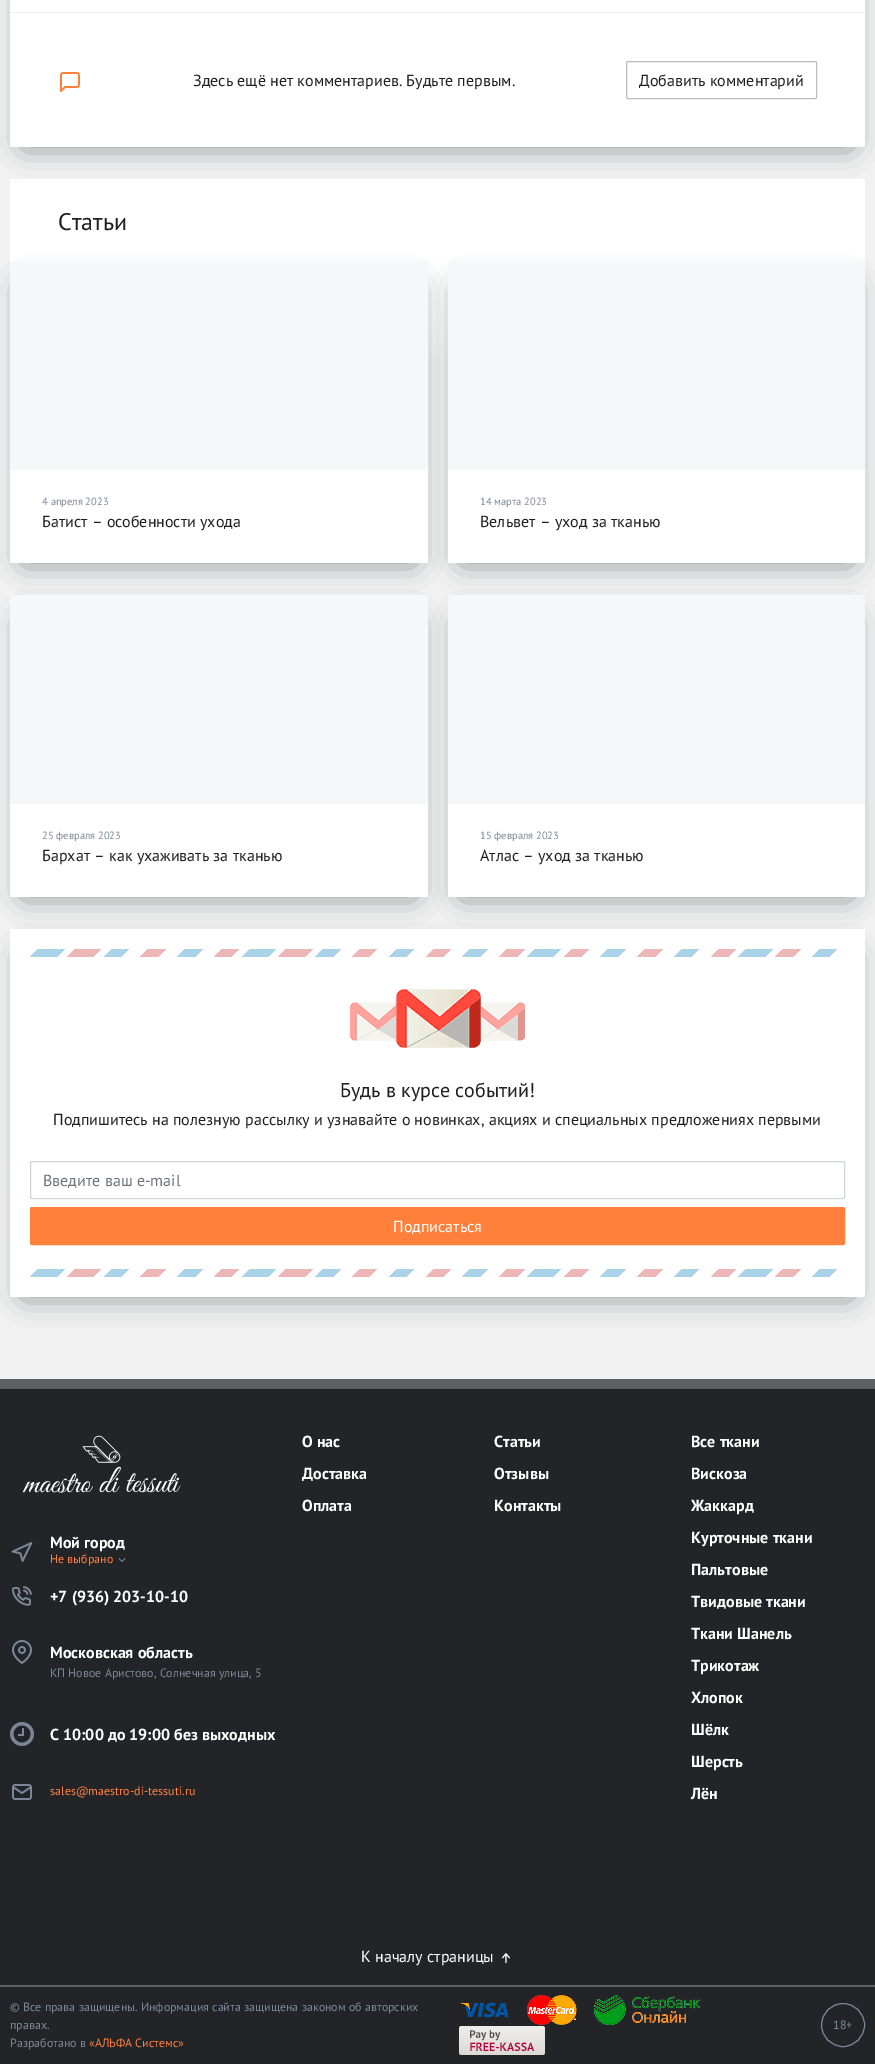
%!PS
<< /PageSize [875 2064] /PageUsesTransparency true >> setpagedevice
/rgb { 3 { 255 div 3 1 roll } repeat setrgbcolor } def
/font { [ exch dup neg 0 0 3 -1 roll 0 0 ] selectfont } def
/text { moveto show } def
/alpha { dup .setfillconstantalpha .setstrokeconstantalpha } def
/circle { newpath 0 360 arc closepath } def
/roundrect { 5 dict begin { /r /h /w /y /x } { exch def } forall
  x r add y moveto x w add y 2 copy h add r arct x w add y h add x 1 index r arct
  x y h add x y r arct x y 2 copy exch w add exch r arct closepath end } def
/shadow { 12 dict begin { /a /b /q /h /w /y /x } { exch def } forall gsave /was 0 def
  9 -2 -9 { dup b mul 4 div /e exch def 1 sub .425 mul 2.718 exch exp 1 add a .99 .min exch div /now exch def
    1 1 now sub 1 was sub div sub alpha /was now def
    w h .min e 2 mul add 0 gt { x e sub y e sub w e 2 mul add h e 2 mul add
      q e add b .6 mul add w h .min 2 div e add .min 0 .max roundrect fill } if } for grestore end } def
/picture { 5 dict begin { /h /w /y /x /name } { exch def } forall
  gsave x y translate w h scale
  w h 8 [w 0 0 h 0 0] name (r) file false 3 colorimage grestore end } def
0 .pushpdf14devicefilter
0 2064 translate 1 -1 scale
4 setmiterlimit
241 241 241 rgb
0 0 875 2064 rectfill
61 72 81 rgb
25 -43 825 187 0 15 0.75 shadow
255 255 255 rgb
10 0 855 12 rectfill
10 13 855 134 rectfill
241 241 241 rgb
10 12 855 1 rectfill
(img_01.rgb) 60 72 20 20 picture
189 189 189 rgb
626.5 61.5 190 37 1.5 roundrect stroke
255 255 255 rgb
10 179 855 82 rectfill
gsave 10 261 moveto 855 0 rlineto 0 98 rlineto -855 0 rlineto closepath clip newpath
<< /ShadingType 2 /ColorSpace /DeviceRGB /Coords [437 261 438 897] /Extend [true true] /Function << /FunctionType 3 /Domain [0 1] /Functions [<< /FunctionType 2 /Domain [0 1] /C0 [1 1 1] /C1 [0.941 0.941 0.941] /N 1 >> << /FunctionType 2 /Domain [0 1] /C0 [0.941 0.941 0.941] /C1 [0.941 0.941 0.941] /N 1 >>] /Bounds [0.2] /Encode [0 1 0 1] >> >> shfill grestore
61 72 81 rgb
25 288 388 272 0 15 0.75 shadow
255 255 255 rgb
10 470 418 93 rectfill
246 247 248 rgb
10 261 418 209 rectfill
61 72 81 rgb
463 288 387 272 0 15 0.75 shadow
255 255 255 rgb
448 470 417 93 rectfill
246 247 248 rgb
448 261 417 209 rectfill
61 72 81 rgb
25 956 825 338 0 15 0.75 shadow
255 255 255 rgb
10 929 855 368 rectfill
61 72 81 rgb
25 622 388 272 0 15 0.75 shadow
255 255 255 rgb
10 804 418 93 rectfill
246 247 248 rgb
10 595 418 209 rectfill
61 72 81 rgb
463 622 387 272 0 15 0.75 shadow
255 255 255 rgb
448 804 417 93 rectfill
246 247 248 rgb
448 595 417 209 rectfill
gsave 30 949 moveto 815 0 rlineto 0 8 rlineto -815 0 rlineto closepath clip newpath
<< /ShadingType 2 /ColorSpace /DeviceRGB /Coords [672 1188 213 728] /Extend [true true] /Function << /FunctionType 3 /Domain [0 1] /Functions [<< /FunctionType 2 /Domain [0 1] /C0 [0.667 0.824 0.914] /C1 [0.667 0.824 0.914] /N 1 >> << /FunctionType 2 /Domain [0 1] /C0 [1 1 1] /C1 [1 1 1] /N 1 >> << /FunctionType 2 /Domain [0 1] /C0 [0.929 0.718 0.718] /C1 [0.929 0.718 0.718] /N 1 >> << /FunctionType 2 /Domain [0 1] /C0 [1 1 1] /C1 [1 1 1] /N 1 >> << /FunctionType 2 /Domain [0 1] /C0 [0.667 0.824 0.914] /C1 [0.667 0.824 0.914] /N 1 >> << /FunctionType 2 /Domain [0 1] /C0 [1 1 1] /C1 [1 1 1] /N 1 >> << /FunctionType 2 /Domain [0 1] /C0 [0.929 0.718 0.718] /C1 [0.929 0.718 0.718] /N 1 >> << /FunctionType 2 /Domain [0 1] /C0 [1 1 1] /C1 [1 1 1] /N 1 >> << /FunctionType 2 /Domain [0 1] /C0 [0.667 0.824 0.914] /C1 [0.667 0.824 0.914] /N 1 >> << /FunctionType 2 /Domain [0 1] /C0 [1 1 1] /C1 [1 1 1] /N 1 >> << /FunctionType 2 /Domain [0 1] /C0 [0.929 0.718 0.718] /C1 [0.929 0.718 0.718] /N 1 >> << /FunctionType 2 /Domain [0 1] /C0 [1 1 1] /C1 [1 1 1] /N 1 >> << /FunctionType 2 /Domain [0 1] /C0 [0.667 0.824 0.914] /C1 [0.667 0.824 0.914] /N 1 >> << /FunctionType 2 /Domain [0 1] /C0 [1 1 1] /C1 [1 1 1] /N 1 >> << /FunctionType 2 /Domain [0 1] /C0 [0.929 0.718 0.718] /C1 [0.929 0.718 0.718] /N 1 >> << /FunctionType 2 /Domain [0 1] /C0 [1 1 1] /C1 [1 1 1] /N 1 >> << /FunctionType 2 /Domain [0 1] /C0 [0.667 0.824 0.914] /C1 [0.667 0.824 0.914] /N 1 >> << /FunctionType 2 /Domain [0 1] /C0 [1 1 1] /C1 [1 1 1] /N 1 >> << /FunctionType 2 /Domain [0 1] /C0 [0.929 0.718 0.718] /C1 [0.929 0.718 0.718] /N 1 >> << /FunctionType 2 /Domain [0 1] /C0 [1 1 1] /C1 [1 1 1] /N 1 >> << /FunctionType 2 /Domain [0 1] /C0 [0.667 0.824 0.914] /C1 [0.667 0.824 0.914] /N 1 >> << /FunctionType 2 /Domain [0 1] /C0 [1 1 1] /C1 [1 1 1] /N 1 >> << /FunctionType 2 /Domain [0 1] /C0 [0.929 0.718 0.718] /C1 [0.929 0.718 0.718] /N 1 >> << /FunctionType 2 /Domain [0 1] /C0 [1 1 1] /C1 [1 1 1] /N 1 >> << /FunctionType 2 /Domain [0 1] /C0 [0.667 0.824 0.914] /C1 [0.667 0.824 0.914] /N 1 >> << /FunctionType 2 /Domain [0 1] /C0 [1 1 1] /C1 [1 1 1] /N 1 >> << /FunctionType 2 /Domain [0 1] /C0 [0.929 0.718 0.718] /C1 [0.929 0.718 0.718] /N 1 >> << /FunctionType 2 /Domain [0 1] /C0 [1 1 1] /C1 [1 1 1] /N 1 >> << /FunctionType 2 /Domain [0 1] /C0 [0.667 0.824 0.914] /C1 [0.667 0.824 0.914] /N 1 >> << /FunctionType 2 /Domain [0 1] /C0 [1 1 1] /C1 [1 1 1] /N 1 >> << /FunctionType 2 /Domain [0 1] /C0 [0.929 0.718 0.718] /C1 [0.929 0.718 0.718] /N 1 >> << /FunctionType 2 /Domain [0 1] /C0 [1 1 1] /C1 [1 1 1] /N 1 >> << /FunctionType 2 /Domain [0 1] /C0 [0.667 0.824 0.914] /C1 [0.667 0.824 0.914] /N 1 >> << /FunctionType 2 /Domain [0 1] /C0 [1 1 1] /C1 [1 1 1] /N 1 >> << /FunctionType 2 /Domain [0 1] /C0 [0.929 0.718 0.718] /C1 [0.929 0.718 0.718] /N 1 >> << /FunctionType 2 /Domain [0 1] /C0 [1 1 1] /C1 [1 1 1] /N 1 >> << /FunctionType 2 /Domain [0 1] /C0 [0.667 0.824 0.914] /C1 [0.667 0.824 0.914] /N 1 >> << /FunctionType 2 /Domain [0 1] /C0 [1 1 1] /C1 [1 1 1] /N 1 >> << /FunctionType 2 /Domain [0 1] /C0 [0.929 0.718 0.718] /C1 [0.929 0.718 0.718] /N 1 >> << /FunctionType 2 /Domain [0 1] /C0 [1 1 1] /C1 [1 1 1] /N 1 >> << /FunctionType 2 /Domain [0 1] /C0 [0.667 0.824 0.914] /C1 [0.667 0.824 0.914] /N 1 >> << /FunctionType 2 /Domain [0 1] /C0 [1 1 1] /C1 [1 1 1] /N 1 >> << /FunctionType 2 /Domain [0 1] /C0 [0.929 0.718 0.718] /C1 [0.929 0.718 0.718] /N 1 >> << /FunctionType 2 /Domain [0 1] /C0 [1 1 1] /C1 [1 1 1] /N 1 >> << /FunctionType 2 /Domain [0 1] /C0 [0.667 0.824 0.914] /C1 [0.667 0.824 0.914] /N 1 >> << /FunctionType 2 /Domain [0 1] /C0 [1 1 1] /C1 [1 1 1] /N 1 >> << /FunctionType 2 /Domain [0 1] /C0 [0.929 0.718 0.718] /C1 [0.929 0.718 0.718] /N 1 >> << /FunctionType 2 /Domain [0 1] /C0 [1 1 1] /C1 [1 1 1] /N 1 >> << /FunctionType 2 /Domain [0 1] /C0 [0.667 0.824 0.914] /C1 [0.667 0.824 0.914] /N 1 >> << /FunctionType 2 /Domain [0 1] /C0 [1 1 1] /C1 [1 1 1] /N 1 >> << /FunctionType 2 /Domain [0 1] /C0 [0.929 0.718 0.718] /C1 [0.929 0.718 0.718] /N 1 >> << /FunctionType 2 /Domain [0 1] /C0 [1 1 1] /C1 [1 1 1] /N 1 >>] /Bounds [0.02 0.04 0.06 0.08 0.1 0.12 0.14 0.15 0.18 0.19 0.21 0.23 0.25 0.27 0.29 0.31 0.33 0.35 0.37 0.38 0.41 0.42 0.44 0.46 0.48 0.5 0.52 0.54 0.56 0.58 0.6 0.62 0.64 0.65 0.68 0.69 0.72 0.73 0.75 0.77 0.79 0.81 0.83 0.85 0.87 0.88 0.91 0.92 0.95 0.96 0.98] /Encode [0 1 0 1 0 1 0 1 0 1 0 1 0 1 0 1 0 1 0 1 0 1 0 1 0 1 0 1 0 1 0 1 0 1 0 1 0 1 0 1 0 1 0 1 0 1 0 1 0 1 0 1 0 1 0 1 0 1 0 1 0 1 0 1 0 1 0 1 0 1 0 1 0 1 0 1 0 1 0 1 0 1 0 1 0 1 0 1 0 1 0 1 0 1 0 1 0 1 0 1 0 1 0 1] >> >> shfill grestore
(img_02.rgb) 350 989 175 59 picture
206 212 218 rgb
30.5 1161.5 814 37 1.5 roundrect stroke
255 128 59 rgb
30.5 1207.5 814 37 1.5 roundrect gsave fill grestore
stroke
gsave 30 1269 moveto 815 0 rlineto 0 8 rlineto -815 0 rlineto closepath clip newpath
<< /ShadingType 2 /ColorSpace /DeviceRGB /Coords [672 1508 213 1048] /Extend [true true] /Function << /FunctionType 3 /Domain [0 1] /Functions [<< /FunctionType 2 /Domain [0 1] /C0 [0.667 0.824 0.914] /C1 [0.667 0.824 0.914] /N 1 >> << /FunctionType 2 /Domain [0 1] /C0 [1 1 1] /C1 [1 1 1] /N 1 >> << /FunctionType 2 /Domain [0 1] /C0 [0.929 0.718 0.718] /C1 [0.929 0.718 0.718] /N 1 >> << /FunctionType 2 /Domain [0 1] /C0 [1 1 1] /C1 [1 1 1] /N 1 >> << /FunctionType 2 /Domain [0 1] /C0 [0.667 0.824 0.914] /C1 [0.667 0.824 0.914] /N 1 >> << /FunctionType 2 /Domain [0 1] /C0 [1 1 1] /C1 [1 1 1] /N 1 >> << /FunctionType 2 /Domain [0 1] /C0 [0.929 0.718 0.718] /C1 [0.929 0.718 0.718] /N 1 >> << /FunctionType 2 /Domain [0 1] /C0 [1 1 1] /C1 [1 1 1] /N 1 >> << /FunctionType 2 /Domain [0 1] /C0 [0.667 0.824 0.914] /C1 [0.667 0.824 0.914] /N 1 >> << /FunctionType 2 /Domain [0 1] /C0 [1 1 1] /C1 [1 1 1] /N 1 >> << /FunctionType 2 /Domain [0 1] /C0 [0.929 0.718 0.718] /C1 [0.929 0.718 0.718] /N 1 >> << /FunctionType 2 /Domain [0 1] /C0 [1 1 1] /C1 [1 1 1] /N 1 >> << /FunctionType 2 /Domain [0 1] /C0 [0.667 0.824 0.914] /C1 [0.667 0.824 0.914] /N 1 >> << /FunctionType 2 /Domain [0 1] /C0 [1 1 1] /C1 [1 1 1] /N 1 >> << /FunctionType 2 /Domain [0 1] /C0 [0.929 0.718 0.718] /C1 [0.929 0.718 0.718] /N 1 >> << /FunctionType 2 /Domain [0 1] /C0 [1 1 1] /C1 [1 1 1] /N 1 >> << /FunctionType 2 /Domain [0 1] /C0 [0.667 0.824 0.914] /C1 [0.667 0.824 0.914] /N 1 >> << /FunctionType 2 /Domain [0 1] /C0 [1 1 1] /C1 [1 1 1] /N 1 >> << /FunctionType 2 /Domain [0 1] /C0 [0.929 0.718 0.718] /C1 [0.929 0.718 0.718] /N 1 >> << /FunctionType 2 /Domain [0 1] /C0 [1 1 1] /C1 [1 1 1] /N 1 >> << /FunctionType 2 /Domain [0 1] /C0 [0.667 0.824 0.914] /C1 [0.667 0.824 0.914] /N 1 >> << /FunctionType 2 /Domain [0 1] /C0 [1 1 1] /C1 [1 1 1] /N 1 >> << /FunctionType 2 /Domain [0 1] /C0 [0.929 0.718 0.718] /C1 [0.929 0.718 0.718] /N 1 >> << /FunctionType 2 /Domain [0 1] /C0 [1 1 1] /C1 [1 1 1] /N 1 >> << /FunctionType 2 /Domain [0 1] /C0 [0.667 0.824 0.914] /C1 [0.667 0.824 0.914] /N 1 >> << /FunctionType 2 /Domain [0 1] /C0 [1 1 1] /C1 [1 1 1] /N 1 >> << /FunctionType 2 /Domain [0 1] /C0 [0.929 0.718 0.718] /C1 [0.929 0.718 0.718] /N 1 >> << /FunctionType 2 /Domain [0 1] /C0 [1 1 1] /C1 [1 1 1] /N 1 >> << /FunctionType 2 /Domain [0 1] /C0 [0.667 0.824 0.914] /C1 [0.667 0.824 0.914] /N 1 >> << /FunctionType 2 /Domain [0 1] /C0 [1 1 1] /C1 [1 1 1] /N 1 >> << /FunctionType 2 /Domain [0 1] /C0 [0.929 0.718 0.718] /C1 [0.929 0.718 0.718] /N 1 >> << /FunctionType 2 /Domain [0 1] /C0 [1 1 1] /C1 [1 1 1] /N 1 >> << /FunctionType 2 /Domain [0 1] /C0 [0.667 0.824 0.914] /C1 [0.667 0.824 0.914] /N 1 >> << /FunctionType 2 /Domain [0 1] /C0 [1 1 1] /C1 [1 1 1] /N 1 >> << /FunctionType 2 /Domain [0 1] /C0 [0.929 0.718 0.718] /C1 [0.929 0.718 0.718] /N 1 >> << /FunctionType 2 /Domain [0 1] /C0 [1 1 1] /C1 [1 1 1] /N 1 >> << /FunctionType 2 /Domain [0 1] /C0 [0.667 0.824 0.914] /C1 [0.667 0.824 0.914] /N 1 >> << /FunctionType 2 /Domain [0 1] /C0 [1 1 1] /C1 [1 1 1] /N 1 >> << /FunctionType 2 /Domain [0 1] /C0 [0.929 0.718 0.718] /C1 [0.929 0.718 0.718] /N 1 >> << /FunctionType 2 /Domain [0 1] /C0 [1 1 1] /C1 [1 1 1] /N 1 >> << /FunctionType 2 /Domain [0 1] /C0 [0.667 0.824 0.914] /C1 [0.667 0.824 0.914] /N 1 >> << /FunctionType 2 /Domain [0 1] /C0 [1 1 1] /C1 [1 1 1] /N 1 >> << /FunctionType 2 /Domain [0 1] /C0 [0.929 0.718 0.718] /C1 [0.929 0.718 0.718] /N 1 >> << /FunctionType 2 /Domain [0 1] /C0 [1 1 1] /C1 [1 1 1] /N 1 >> << /FunctionType 2 /Domain [0 1] /C0 [0.667 0.824 0.914] /C1 [0.667 0.824 0.914] /N 1 >> << /FunctionType 2 /Domain [0 1] /C0 [1 1 1] /C1 [1 1 1] /N 1 >> << /FunctionType 2 /Domain [0 1] /C0 [0.929 0.718 0.718] /C1 [0.929 0.718 0.718] /N 1 >> << /FunctionType 2 /Domain [0 1] /C0 [1 1 1] /C1 [1 1 1] /N 1 >> << /FunctionType 2 /Domain [0 1] /C0 [0.667 0.824 0.914] /C1 [0.667 0.824 0.914] /N 1 >> << /FunctionType 2 /Domain [0 1] /C0 [1 1 1] /C1 [1 1 1] /N 1 >> << /FunctionType 2 /Domain [0 1] /C0 [0.929 0.718 0.718] /C1 [0.929 0.718 0.718] /N 1 >> << /FunctionType 2 /Domain [0 1] /C0 [1 1 1] /C1 [1 1 1] /N 1 >>] /Bounds [0.02 0.04 0.06 0.08 0.1 0.12 0.14 0.15 0.18 0.19 0.21 0.23 0.25 0.27 0.29 0.31 0.33 0.35 0.37 0.38 0.41 0.42 0.44 0.46 0.48 0.5 0.52 0.54 0.56 0.58 0.6 0.62 0.64 0.65 0.68 0.69 0.72 0.73 0.75 0.77 0.79 0.81 0.83 0.85 0.87 0.88 0.91 0.92 0.95 0.96 0.98] /Encode [0 1 0 1 0 1 0 1 0 1 0 1 0 1 0 1 0 1 0 1 0 1 0 1 0 1 0 1 0 1 0 1 0 1 0 1 0 1 0 1 0 1 0 1 0 1 0 1 0 1 0 1 0 1 0 1 0 1 0 1 0 1 0 1 0 1 0 1 0 1 0 1 0 1 0 1 0 1 0 1 0 1 0 1 0 1 0 1 0 1 0 1 0 1 0 1 0 1 0 1 0 1 0 1] >> >> shfill grestore
34 36 40 rgb
0 1389 875 675 rectfill
94 95 97 rgb
0 1379 875 10 rectfill
(img_03.rgb) 22 1435 159 58 picture
(img_04.rgb) 11 1542 22 20 picture
(img_05.rgb) 118 1558 8 4 picture
(img_06.rgb) 11 1586 21 20 picture
(img_07.rgb) 12 1640 20 24 picture
(img_08.rgb) 10 1722 24 24 picture
(img_09.rgb) 12 1784 20 16 picture
(img_10.rgb) 501 1953 9 11 picture
0 1985 875 2 rectfill
(img_11.rgb) 461 2002 48 16 picture
(img_12.rgb) 527 1995 50 30 picture
(img_13.rgb) 594 1995 106 30 picture
(img_14.rgb) 459 2026 86 29 picture
125 134 152 rgb
843 2025 21.5 circle stroke
/PTSans-Regular 16 font
32 32 32 rgb
(Здесь ещё нет комментариев. Будьте первым.) 193 86 text
(Добавить комментарий) 639 86 text
/PTSans-Regular 24 font
(Статьи) 58 230 text
/PTSans-Regular 10.5 font
125 134 152 rgb
(4 апреля 2023) 42 505 text
/PTSans-Regular 16 font
32 32 32 rgb
(Батист – особенности ухода) 42 527 text
/PTSans-Regular 10.5 font
125 134 152 rgb
(14 марта 2023) 480 505 text
/PTSans-Regular 16 font
32 32 32 rgb
(Вельвет – уход за тканью) 480 527 text
/PTSans-Regular 10.5 font
125 134 152 rgb
(25 февраля 2023) 42 839 text
/PTSans-Regular 16 font
32 32 32 rgb
(Бархат – как ухаживать за тканью) 42 861 text
/PTSans-Regular 10.5 font
125 134 152 rgb
(15 февраля 2023) 480 839 text
/PTSans-Regular 16 font
32 32 32 rgb
(Атлас – уход за тканью) 480 861 text
/PTSans-Regular 20 font
(Будь в курсе событий!) 340 1097 text
/PTSans-Regular 16 font
(Подпишитесь на полезную рассылку и узнавайте о новинках, акциях и специальных предложениях первыми) 53 1125 text
108 117 125 rgb
(Введите ваш e-mail) 43 1186 text
255 255 255 rgb
(Подписаться) 393 1232 text
/PTSans-Bold 16 font
(Мой город) 50 1548 text
/PTSans-Regular 12 font
255 128 59 rgb
(Не выбрано) 50 1563 text
/PTSans-Bold 16 font
255 255 255 rgb
(+7 \(936\) 203-10-10) 50 1602 text
(Московская область) 50 1658 text
/PTSans-Regular 12 font
125 134 152 rgb
(КП Новое Аристово, Солнечная улица, 5) 50 1677 text
/PTSans-Bold 16 font
255 255 255 rgb
(С 10:00 до 19:00 без выходных) 50 1740 text
/PTSans-Regular 12 font
255 128 59 rgb
(sales@maestro-di-tessuti.ru) 50 1795 text
/PTSans-Bold 16 font
255 255 255 rgb
(О нас) 302 1447 text
(Статьи) 494 1447 text
(Доставка) 302 1479 text
(Отзывы) 494 1479 text
(Оплата) 302 1511 text
(Контакты) 494 1511 text
(Все ткани) 691 1447 text
(Вискоза) 691 1479 text
(Жаккард) 691 1511 text
(Курточные ткани) 691 1543 text
(Пальтовые) 691 1575 text
(Твидовые ткани) 691 1607 text
(Ткани Шанель) 691 1639 text
(Трикотаж) 691 1671 text
(Хлопок) 691 1703 text
(Шёлк) 691 1735 text
(Шерсть) 691 1767 text
(Лён) 691 1799 text
/PTSans-Regular 16 font
(К началу страницы) 361 1962 text
/PTSans-Regular 12 font
125 134 152 rgb
(© Все права защищены. Информация сайта защищена законом об авторских) 10 2011 text
(правах.) 10 2029 text
(Разработано в) 10 2047 text
255 128 59 rgb
(«АЛЬФА Системс») 89 2047 text
125 134 152 rgb
(18+) 833 2029 text
.poppdf14devicefilter showpage
